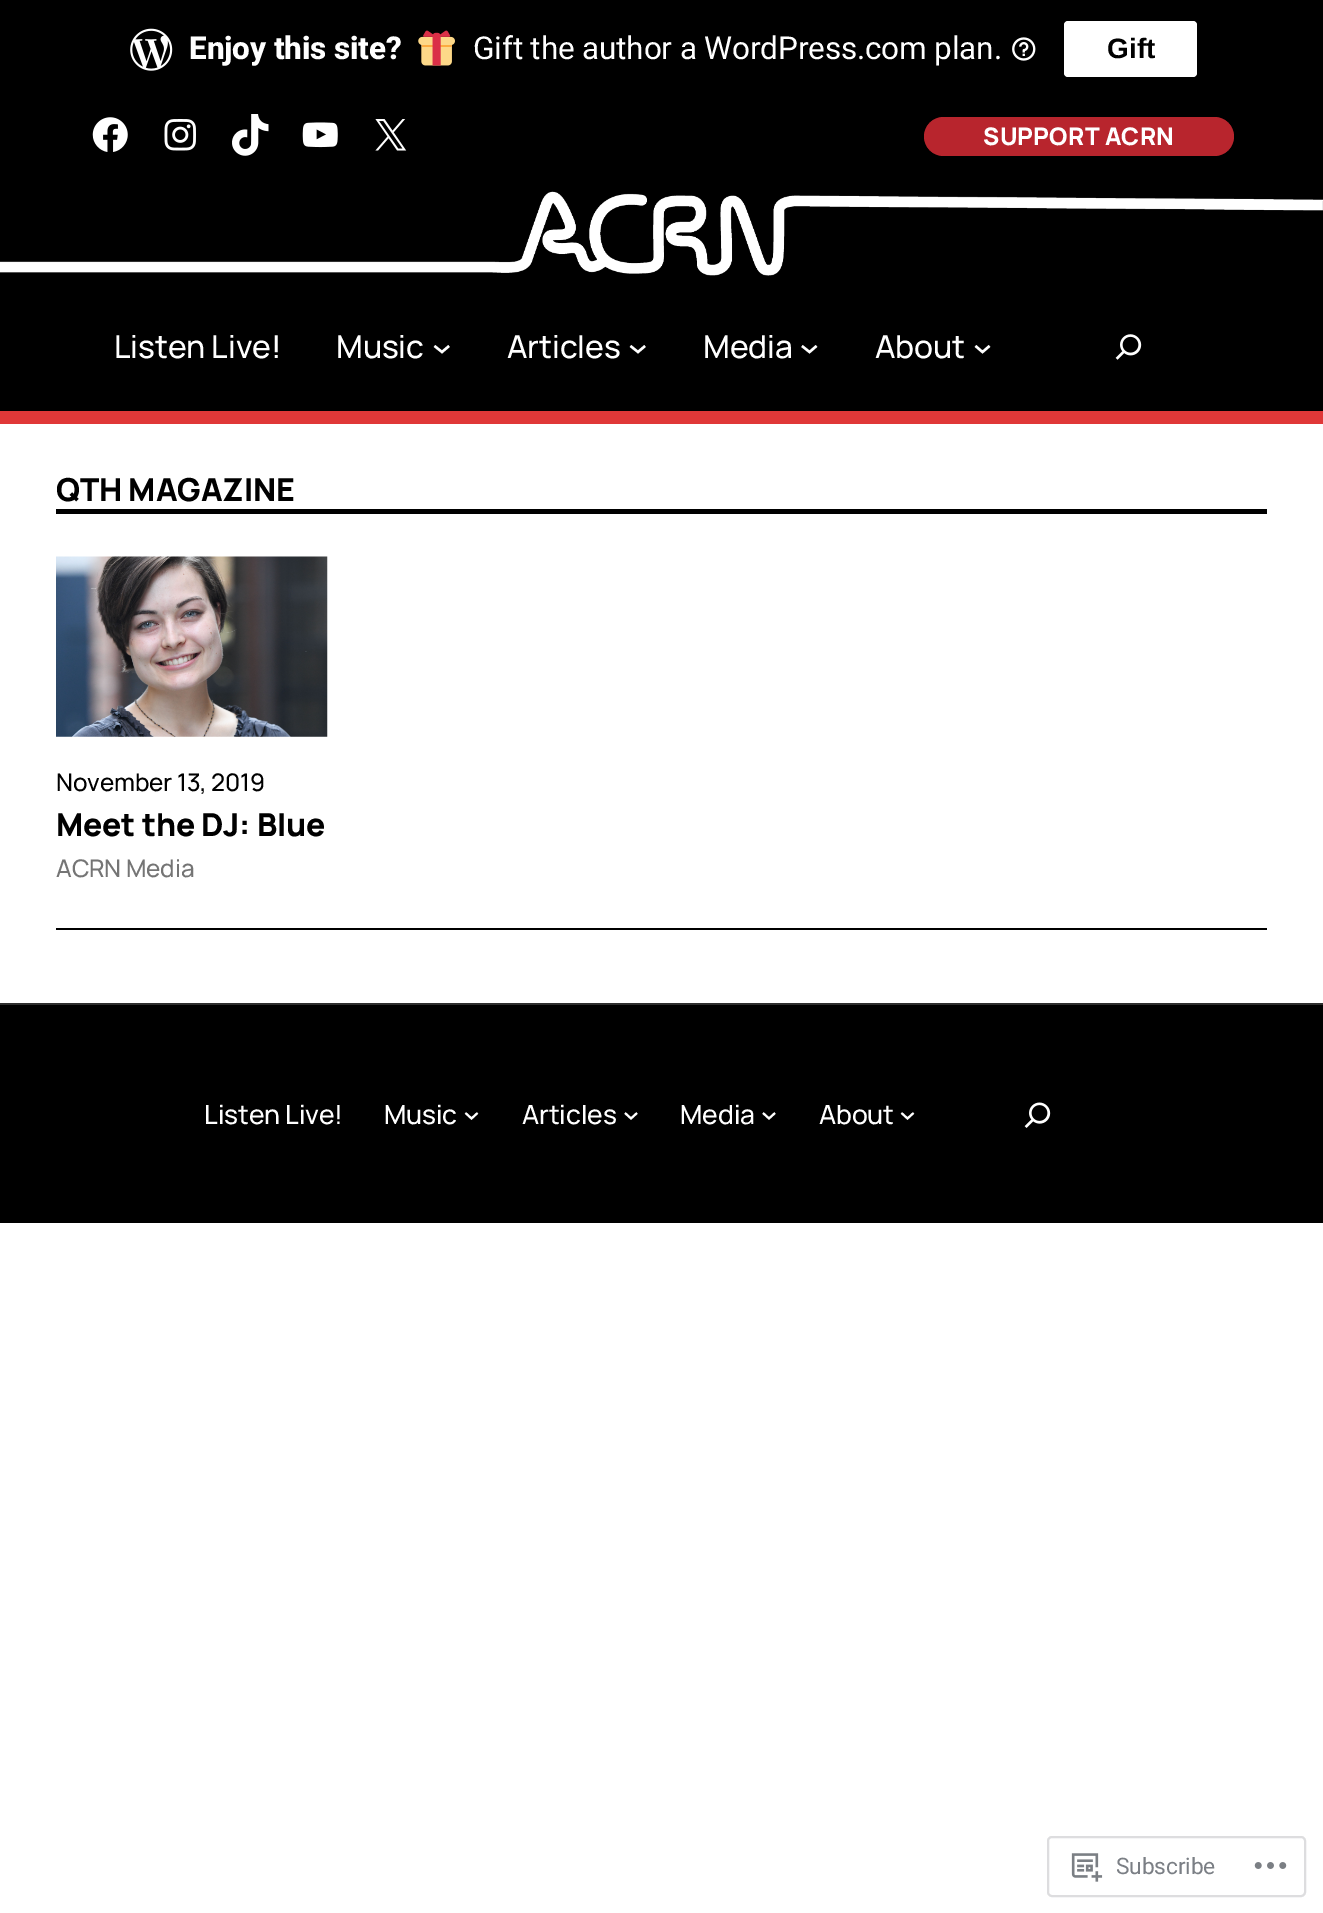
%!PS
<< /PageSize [1323 1913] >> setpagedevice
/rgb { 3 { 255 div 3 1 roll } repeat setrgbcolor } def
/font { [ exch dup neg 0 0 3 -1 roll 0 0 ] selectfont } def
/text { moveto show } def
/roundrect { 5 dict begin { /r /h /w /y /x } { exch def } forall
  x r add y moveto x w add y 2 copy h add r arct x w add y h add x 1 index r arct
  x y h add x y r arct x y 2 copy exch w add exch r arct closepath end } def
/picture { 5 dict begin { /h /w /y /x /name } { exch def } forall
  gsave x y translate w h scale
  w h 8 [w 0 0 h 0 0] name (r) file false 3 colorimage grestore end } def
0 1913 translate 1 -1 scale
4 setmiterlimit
255 255 255 rgb
0 0 1323 1913 rectfill
0 0 0 rgb
0 0 1323 411 rectfill
(img_01.rgb) 130 28 43 43 picture
(img_02.rgb) 418 30 37 36 picture
(img_03.rgb) 1012 37 24 24 picture
255 255 255 rgb
1064 21 133 56 4 roundrect fill
(img_04.rgb) 92 117 36 35 picture
(img_05.rgb) 164 119 32 32 picture
(img_06.rgb) 232 114 37 42 picture
(img_07.rgb) 302 122 36 26 picture
(img_08.rgb) 375 119 32 32 picture
184 37 45 rgb
924 117 310 39 19.5 roundrect fill
224 56 56 rgb
0 411 1323 13 rectfill
(img_09.rgb) 0 191 1323 85 picture
255 255 255 rgb
2.4 setlinewidth
434.5 346 moveto 7.5 6 rlineto 7 -6 rlineto stroke
630.5 346 moveto 7.5 6 rlineto 7 -6 rlineto stroke
802 346 moveto 7.5 6 rlineto 7 -6 rlineto stroke
975.5 346 moveto 7 6 rlineto 7 -6 rlineto stroke
(img_10.rgb) 1115 334 27 26 picture
0 0 0 rgb
56 509 1211 5 rectfill
(img_11.rgb) 56 556 272 181 picture
56 928 1211 2 rectfill
0 1005 1323 218 rectfill
46 46 46 rgb
0 1003 1323 2 rectfill
255 255 255 rgb
2 setlinewidth
465.5 1113 moveto 6 5.5 rlineto 6 -5.5 rlineto stroke
625 1113 moveto 6 5.5 rlineto 6 -5.5 rlineto stroke
763 1113 moveto 6 5.5 rlineto 6 -5.5 rlineto stroke
901.5 1113 moveto 6 5.5 rlineto 6 -5.5 rlineto stroke
(img_12.rgb) 1024 1102 27 26 picture
221 221 223 rgb
1048 1837 257 59 4 roundrect stroke
(img_13.rgb) 1071 1853 32 29 picture
(img_14.rgb) 1254 1862 33 7 picture
/Roboto-ExtraBold 31.5 font
255 255 255 rgb
189 59 moveto -0.15 0 (Enjoy this site?) ashow
/Roboto-Regular 31.5 font
473 59 moveto -0.15 0 (Gift the author a WordPress.com plan.) ashow
/LiberationSans-Bold 28 font
0 0 0 rgb
(Gift) 1107 58 text
/Manrope-ExtraBold 24.25 font
255 255 255 rgb
983 145 moveto 0.25 0 (SUPPORT ACRN) ashow
/Manrope-Medium 31.75 font
114 358 moveto -0.15 0 (Listen Live!) ashow
336 358 moveto -0.15 0 (Music) ashow
507 358 moveto -0.15 0 (Articles) ashow
703 358 moveto -0.15 0 (Media) ashow
875 358 moveto -0.15 0 (About) ashow
/Manrope-ExtraBold 31.75 font
0 0 0 rgb
56 501 moveto -0.15 0 (QTH MAGAZINE) ashow
/Manrope-Medium 24.25 font
56 791 moveto -0.15 0 (November 13, 2019) ashow
/Manrope-ExtraBold 31.75 font
56 836 moveto -0.15 0 (Meet the DJ: Blue) ashow
/Manrope-Medium 24.25 font
117 117 117 rgb
56 877 moveto -0.15 0 (ACRN Media) ashow
/Manrope-Medium 26.5 font
255 255 255 rgb
204 1124 moveto -0.15 0 (Listen Live!) ashow
384 1124 moveto -0.15 0 (Music) ashow
522 1124 moveto -0.15 0 (Articles) ashow
680 1124 moveto -0.15 0 (Media) ashow
819 1124 moveto -0.15 0 (About) ashow
/Roboto-Regular 22.75 font
123 127 133 rgb
1116 1874 moveto -0.15 0 (Subscribe) ashow
showpage
